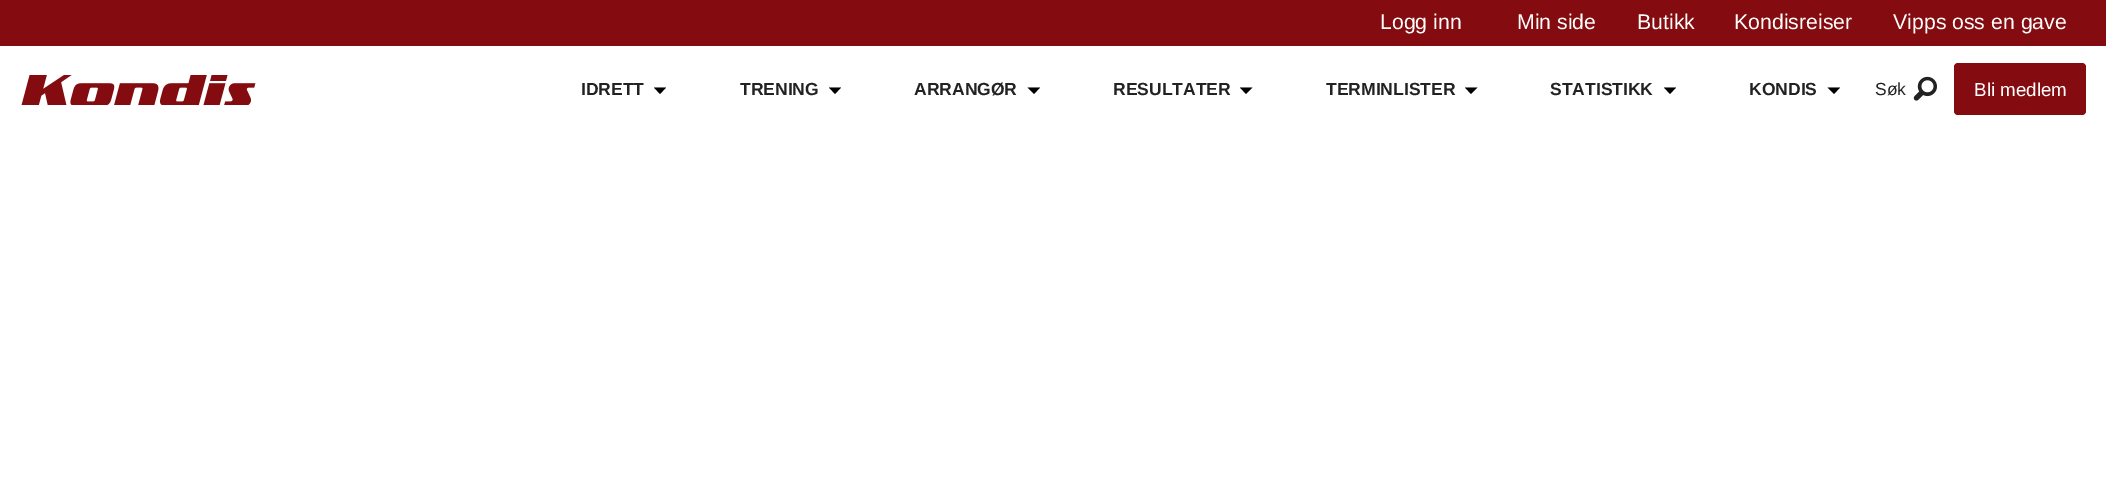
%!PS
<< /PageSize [2106 488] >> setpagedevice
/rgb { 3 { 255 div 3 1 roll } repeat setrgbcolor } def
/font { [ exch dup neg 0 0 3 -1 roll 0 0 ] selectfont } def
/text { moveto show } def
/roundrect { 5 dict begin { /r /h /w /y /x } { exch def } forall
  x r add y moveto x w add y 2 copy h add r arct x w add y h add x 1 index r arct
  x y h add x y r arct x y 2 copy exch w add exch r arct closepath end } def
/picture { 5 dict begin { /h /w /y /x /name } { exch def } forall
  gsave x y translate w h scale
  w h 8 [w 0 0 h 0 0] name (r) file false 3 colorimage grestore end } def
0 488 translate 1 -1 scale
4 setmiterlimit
255 255 255 rgb
0 0 2106 488 rectfill
132 11 15 rgb
0 0 2106 46 rectfill
(img_01.rgb) 21 75 235 30 picture
0 0 0 rgb
654 87.5 moveto 12 0 rlineto -6 6.5 rlineto closepath fill
829 87.5 moveto 12 0 rlineto -6 6.5 rlineto closepath fill
1027.5 87.5 moveto 12.5 0 rlineto -6 6.5 rlineto closepath fill
1240 87.5 moveto 12.5 0 rlineto -6.5 6.5 rlineto closepath fill
1465 87.5 moveto 12.5 0 rlineto -6.5 6.5 rlineto closepath fill
1664 87.5 moveto 12 0 rlineto -6 6.5 rlineto closepath fill
1827.5 87.5 moveto 12.5 0 rlineto -6 6.5 rlineto closepath fill
(img_02.rgb) 1913 76 24 25 picture
132 11 15 rgb
1954 63 132 52 4 roundrect fill
/LiberationSans-Regular 21.25 font
254 254 254 rgb
(Logg inn) 1380 29 text
(Min side) 1517 29 text
(Butikk) 1637 29 text
(Kondisreiser) 1734 29 text
(Vipps oss en gave) 1893 29 text
/LiberationSans-Bold 17.5 font
34 34 34 rgb
(IDRETT) 581 95 text
(TRENING) 740 95 text
(ARRANGØR) 914 95 text
(RESULTATER) 1113 95 text
(TERMINLISTER) 1326 95 text
(STATISTIKK) 1550 95 text
(KONDIS) 1749 95 text
/LiberationSans-Regular 17.5 font
(Søk) 1875 95 text
/LiberationSans-Regular 18.75 font
254 254 254 rgb
(Bli medlem) 1974 96 text
showpage
